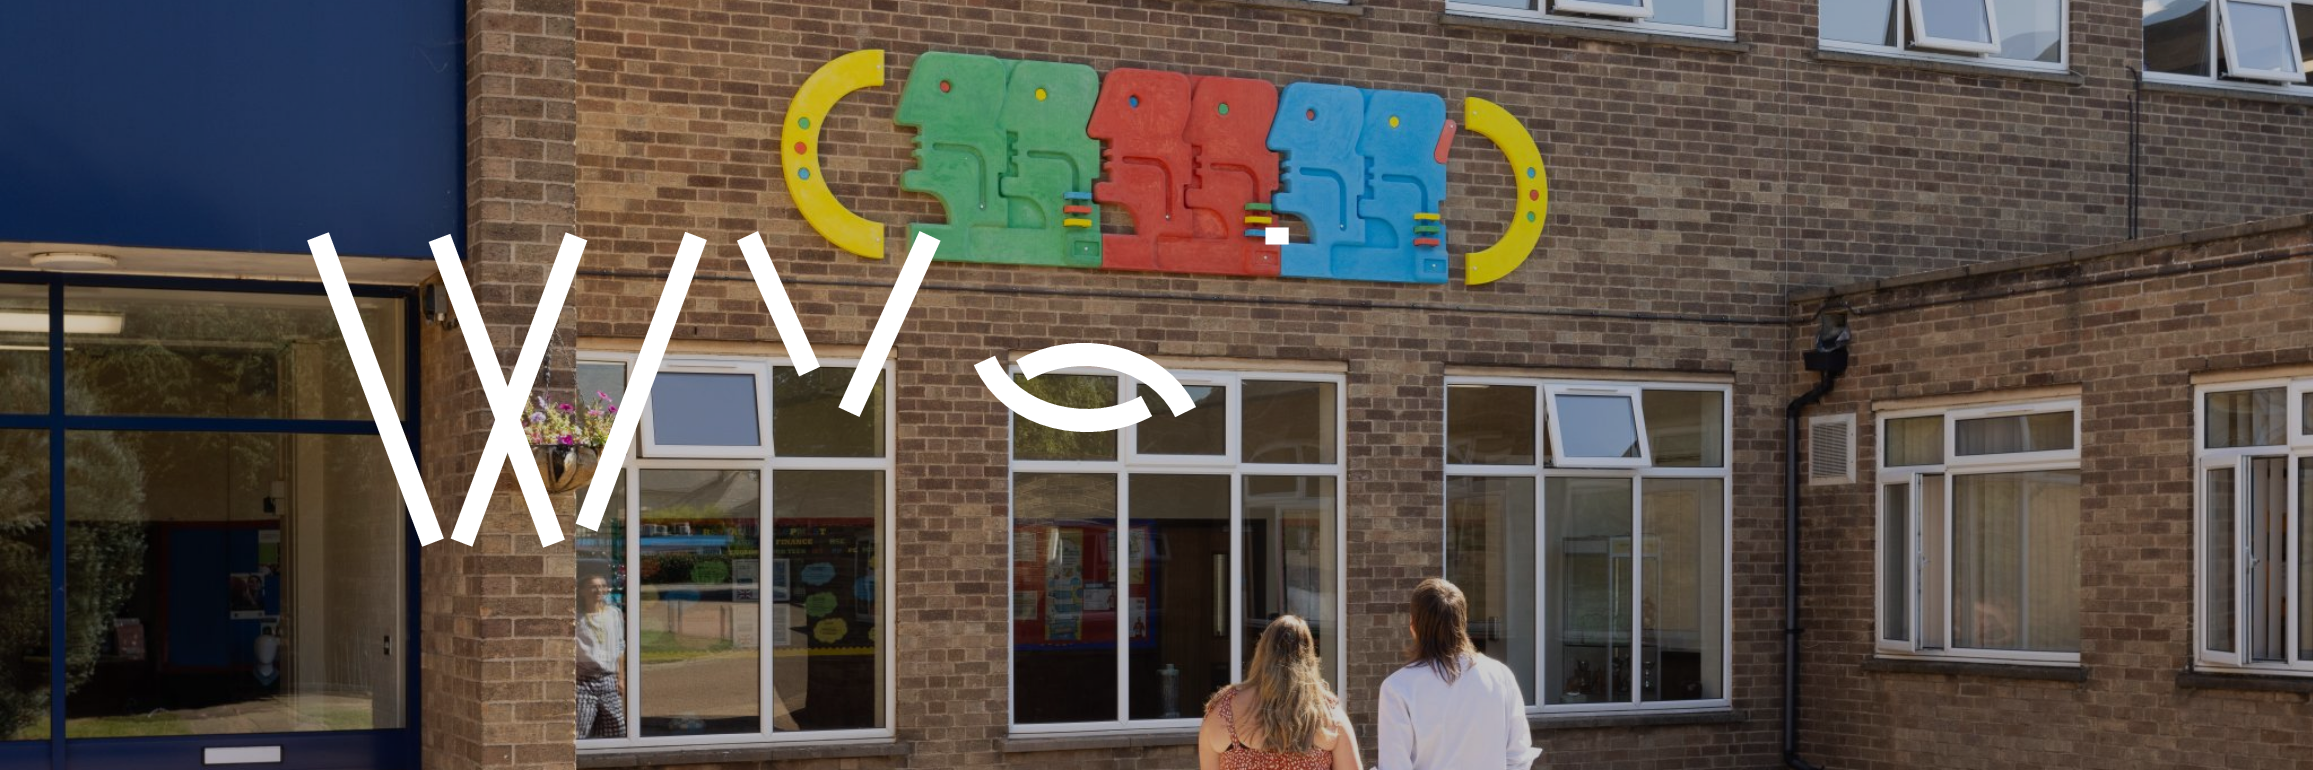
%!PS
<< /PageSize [2313 770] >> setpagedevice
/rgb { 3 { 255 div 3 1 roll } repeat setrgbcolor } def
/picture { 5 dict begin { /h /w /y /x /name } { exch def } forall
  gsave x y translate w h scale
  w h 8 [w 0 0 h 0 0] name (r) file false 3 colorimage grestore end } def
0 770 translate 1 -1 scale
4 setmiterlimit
255 255 255 rgb
0 0 2313 770 rectfill
(img_01.rgb) 0 0 2313 770 picture
22.9 setlinewidth
1277 227.5 moveto 0 17 rlineto stroke
1022 370.5 moveto 53.5 -31 135 -17 163.5 41.5 rcurveto stroke
1146.5 406 moveto -54.5 29.5 -135.5 14 -162 -45.5 rcurveto stroke
930 236 moveto -81 176 rlineto stroke
747.5 236 moveto 62 135.5 rlineto stroke
696 236 moveto -109.5 291.5 rlineto stroke
461.5 542.5 moveto 115 -306 rlineto stroke
554 543.5 moveto -114.5 -305.5 rlineto stroke
433 542.5 moveto -115 -306 rlineto stroke
showpage
